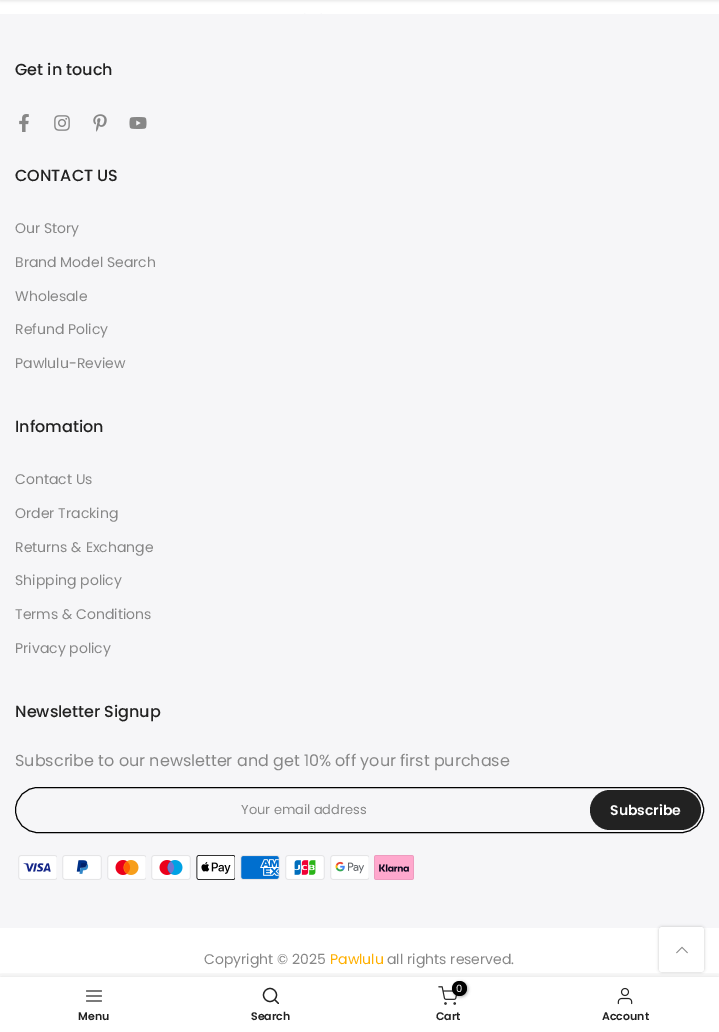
%!PS
<< /PageSize [719 1032] /PageUsesTransparency true >> setpagedevice
/rgb { 3 { 255 div 3 1 roll } repeat setrgbcolor } def
/font { [ exch dup neg 0 0 3 -1 roll 0 0 ] selectfont } def
/text { moveto show } def
/alpha { dup .setfillconstantalpha .setstrokeconstantalpha } def
/circle { newpath 0 360 arc closepath } def
/roundrect { 5 dict begin { /r /h /w /y /x } { exch def } forall
  x r add y moveto x w add y 2 copy h add r arct x w add y h add x 1 index r arct
  x y h add x y r arct x y 2 copy exch w add exch r arct closepath end } def
/shadow { 12 dict begin { /a /b /q /h /w /y /x } { exch def } forall gsave /was 0 def
  9 -2 -9 { dup b mul 4 div /e exch def 1 sub .425 mul 2.718 exch exp 1 add a .99 .min exch div /now exch def
    1 1 now sub 1 was sub div sub alpha /was now def
    w h .min e 2 mul add 0 gt { x e sub y e sub w e 2 mul add h e 2 mul add
      q e add b .6 mul add w h .min 2 div e add .min 0 .max roundrect fill } if } for grestore end } def
/picture { 5 dict begin { /h /w /y /x /name } { exch def } forall
  gsave x y translate w h scale
  w h 8 [w 0 0 h 0 0] name (r) file false 3 colorimage grestore end } def
0 .pushpdf14devicefilter
0 1032 translate 1 -1 scale
4 setmiterlimit
255 255 255 rgb
0 0 719 1032 rectfill
246 246 248 rgb
0 14 719 914 rectfill
1.9 setlinewidth
322 14 moveto -18 18 rlineto 322 32 moveto -18 -18 rlineto stroke
0 0 0 rgb
0 -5 719 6 0 1.5 0.1 shadow
(img_01.rgb) 19 114 10 18 picture
(img_02.rgb) 54 115 16 16 picture
(img_03.rgb) 93 114 14 18 picture
(img_04.rgb) 129 117 18 12 picture
1 setlinewidth
15.5 787.5 688 45 22.5 roundrect stroke
34 34 34 rgb
590 790 111 40 20 roundrect fill
(img_05.rgb) 18 855 39 25 picture
(img_06.rgb) 62 855 40 25 picture
(img_07.rgb) 107 855 39 25 picture
(img_08.rgb) 151 855 40 25 picture
(img_09.rgb) 196 855 39 25 picture
(img_10.rgb) 240 855 40 25 picture
(img_11.rgb) 285 855 40 25 picture
(img_12.rgb) 330 855 39 25 picture
(img_13.rgb) 374 855 40 25 picture
0 0 0 rgb
659 927 45 45 3 1.5 0.2 shadow
gsave
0 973 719 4 rectclip
0 977 719 55 0 4.5 0.12 shadow
grestore
255 255 255 rgb
659 927 45 45 3 roundrect fill
(img_14.rgb) 676 946 12 8 picture
(img_15.rgb) 86 990 16 12 picture
34 34 34 rgb
1.2 setlinewidth
270 995 6.5 circle stroke
1 setlinecap
1 setlinejoin
278.5 1003.5 moveto -3.5 -3.5 rlineto stroke
(img_16.rgb) 438 986 19 19 picture
0 0 0 rgb
453 982 15 15 7.5 1.5 0.3 shadow
459.5 988.5 7.5 circle fill
(img_17.rgb) 617 987 16 18 picture
/Poppins-Medium 16 font
34 34 34 rgb
(Get in touch) 15 75 text
(CONTACT US) 15 181 text
/Poppins-Regular 14 font
135 135 135 rgb
(Our Story) 15 233 text
(Brand Model Search) 15 267 text
(Wholesale) 15 301 text
(Refund Policy) 15 334 text
(Pawlulu-Review) 15 368 text
/Poppins-Medium 16 font
34 34 34 rgb
(Infomation) 15 432 text
/Poppins-Regular 14 font
135 135 135 rgb
(Contact Us) 15 484 text
(Order Tracking) 15 518 text
(Returns & Exchange) 15 552 text
(Shipping policy) 15 585 text
(Terms & Conditions) 15 619 text
(Privacy policy) 15 653 text
/Poppins-Medium 16 font
34 34 34 rgb
(Newsletter Signup) 15 717 text
/Poppins-Regular 16 font
135 135 135 rgb
(Subscribe to our newsletter and get 10% off your first purchase) 15 766 text
/Poppins-Regular 13 font
(Your email address) 241 814 text
/Poppins-SemiBold 14 font
255 255 255 rgb
(Subscribe) 610 815 text
/Poppins-Regular 14 font
135 135 135 rgb
(Copyright © 2025) 204 964 text
255 175 0 rgb
(Pawlulu) 330 964 text
135 135 135 rgb
(all rights reserved.) 387 964 text
/Poppins-SemiBold 11 font
34 34 34 rgb
(Menu) 78 1020 text
(Search) 251 1020 text
/Poppins-Regular 10 font
255 255 255 rgb
(0) 456 992 text
/Poppins-SemiBold 11 font
34 34 34 rgb
(Cart) 436 1020 text
(Account) 602 1020 text
.poppdf14devicefilter showpage
